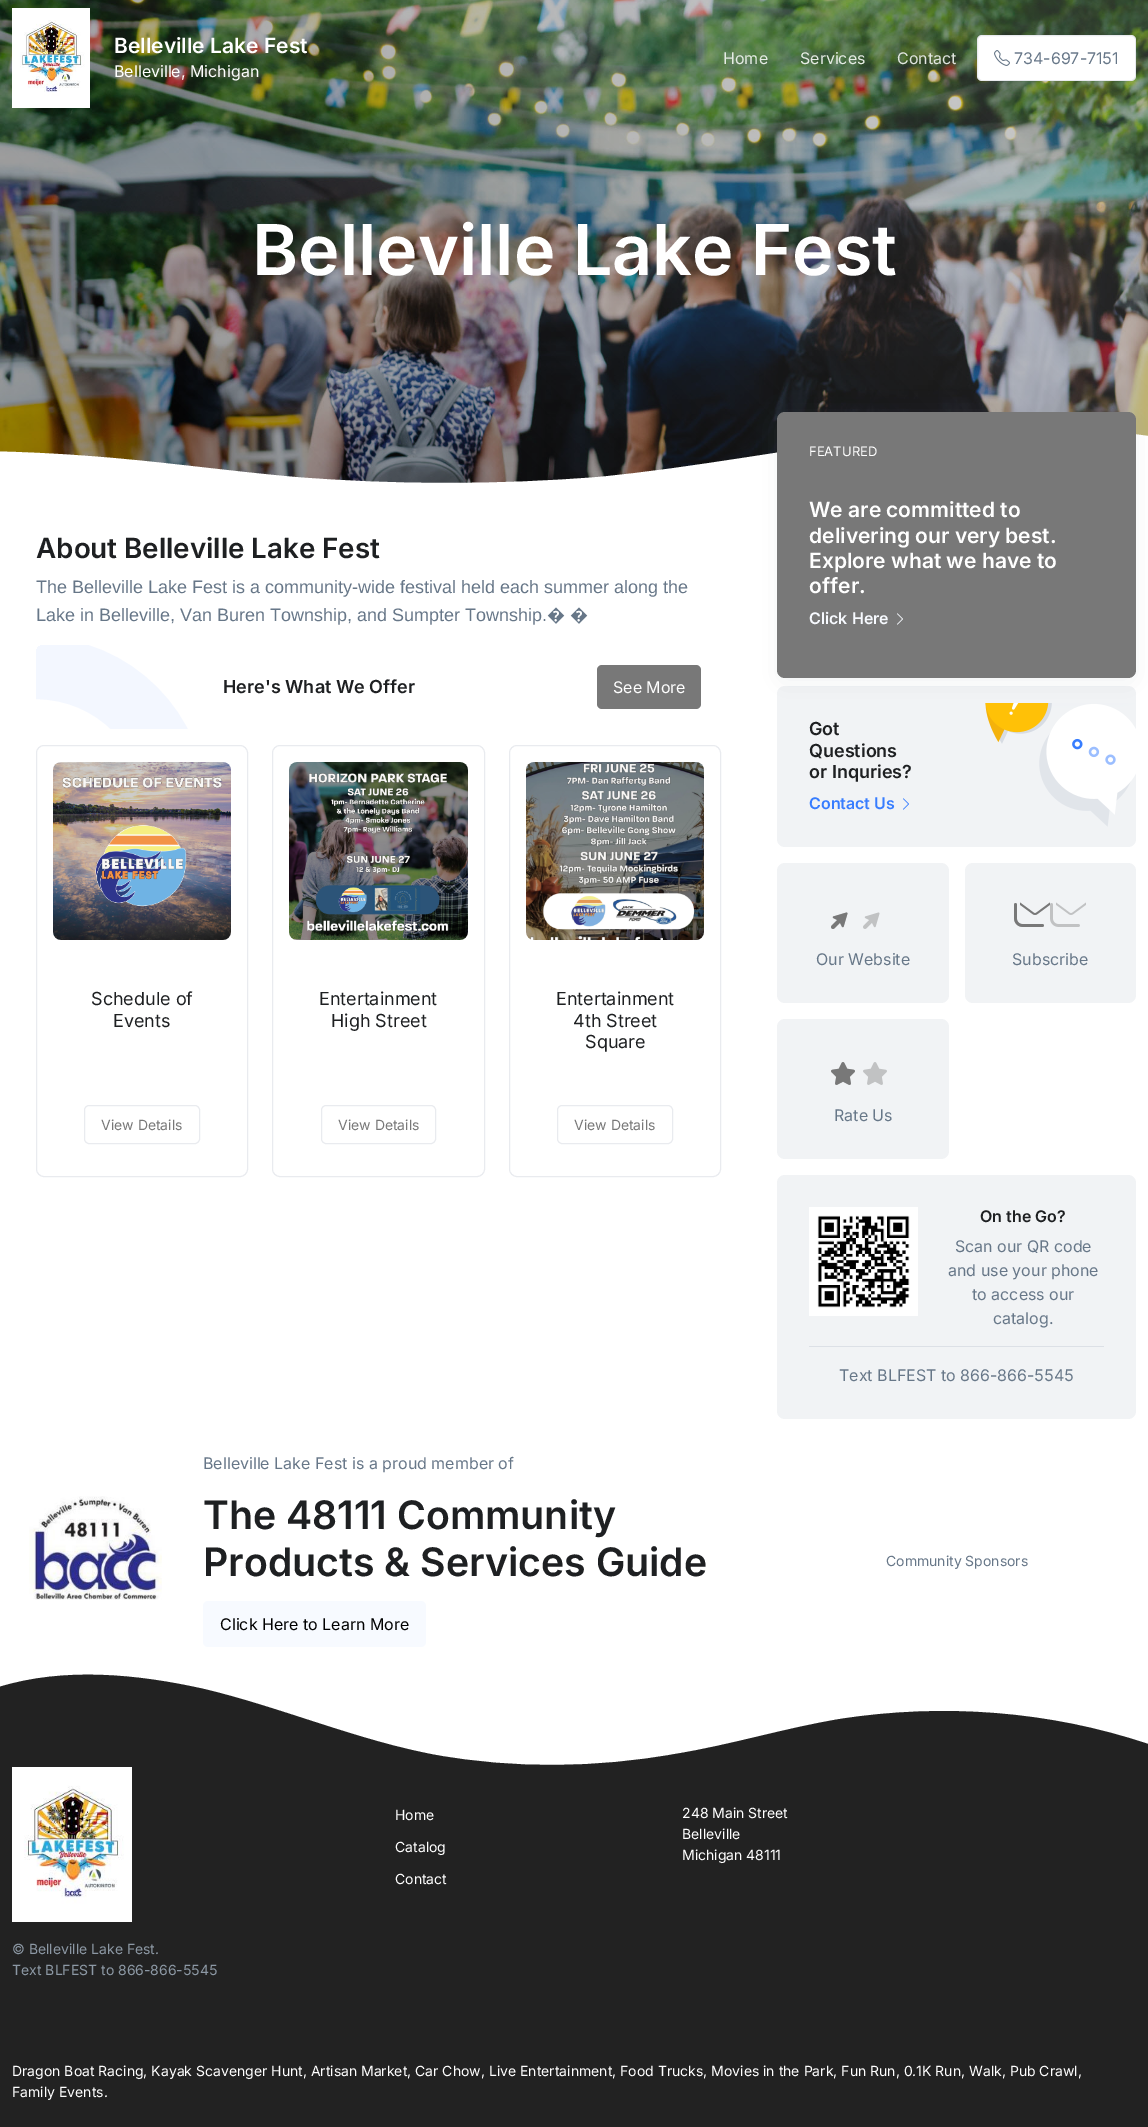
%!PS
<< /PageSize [1148 2127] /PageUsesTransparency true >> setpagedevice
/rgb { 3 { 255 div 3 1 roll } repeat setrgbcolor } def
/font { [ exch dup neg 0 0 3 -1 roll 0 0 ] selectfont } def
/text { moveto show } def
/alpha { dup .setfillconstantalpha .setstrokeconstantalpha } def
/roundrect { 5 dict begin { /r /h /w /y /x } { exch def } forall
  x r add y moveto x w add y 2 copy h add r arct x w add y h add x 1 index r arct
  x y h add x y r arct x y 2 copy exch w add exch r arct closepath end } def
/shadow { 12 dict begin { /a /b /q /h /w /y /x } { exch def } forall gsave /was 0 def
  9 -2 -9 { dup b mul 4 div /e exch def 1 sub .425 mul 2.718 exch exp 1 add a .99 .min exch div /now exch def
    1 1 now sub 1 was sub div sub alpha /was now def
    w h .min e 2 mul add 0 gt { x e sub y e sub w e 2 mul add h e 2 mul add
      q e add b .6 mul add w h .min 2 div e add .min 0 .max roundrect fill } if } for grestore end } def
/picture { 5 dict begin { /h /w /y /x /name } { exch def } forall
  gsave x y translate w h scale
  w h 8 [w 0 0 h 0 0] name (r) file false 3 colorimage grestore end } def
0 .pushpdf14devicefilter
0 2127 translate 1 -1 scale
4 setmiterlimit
255 255 255 rgb
0 0 1148 2127 rectfill
(img_03.rgb) 0 0 1148 483 picture
(img_01.rgb) 12 8 78 100 picture
977 35 159 46 5 roundrect fill
0.1 alpha
33 50 91 rgb
977.5 35.5 158 45 4.5 roundrect stroke
1 alpha
(img_02.rgb) 994 50 16 16 picture
255 255 255 rgb
88 456 moveto 70 5 138 15 207 21 rcurveto 100 8 203 8 303 0 rcurveto 96 -9 196 -29 291 -40 rcurveto 85 -9 177 -13 259 -1 rcurveto 0 48 rlineto -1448 0 rlineto 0 -14 rlineto 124 -19 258 -24 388 -14 rcurveto closepath fill
gsave
36 645 685 84 8 roundrect clip newpath
243 247 255 rgb
62.3 setlinewidth
36 668 moveto 77.5 0 140 63 140 140.5 rcurveto 0 77 -62.5 140 -140 140 rcurveto stroke
grestore
120 120 120 rgb
597 665 104 44 5 roundrect fill
233 235 239 rgb
36.5 745.5 211 431 7.5 roundrect stroke
(img_04.rgb) 53 762 178 178 picture
84.5 1105.5 115 38 4.5 roundrect stroke
272.5 745.5 212 431 7.5 roundrect stroke
(img_05.rgb) 289 762 179 178 picture
321.5 1105.5 114 38 4.5 roundrect stroke
509.5 745.5 211 431 7.5 roundrect stroke
(img_06.rgb) 526 762 178 178 picture
557.5 1105.5 115 38 4.5 roundrect stroke
140 152 164 rgb
777 418 359 266 8 12 0.12 shadow
120 120 120 rgb
777 412 359 266 8 roundrect fill
(img_07.rgb) 897 613 6 12 picture
0.1 alpha
113 134 157 rgb
777 686 359 161 8 roundrect fill
1 alpha
(img_08.rgb) 903 798 6 12 picture
(img_09.rgb) 985 703 151 124 picture
241 243 245 rgb
777 863 172 140 8 roundrect fill
(img_10.rgb) 831 912 17 17 picture
(img_11.rgb) 831 912 49 17 picture
965 863 171 140 8 roundrect fill
(img_12.rgb) 1014 902 36 25 picture
(img_13.rgb) 1014 902 72 25 picture
777 1019 172 140 8 roundrect fill
(img_14.rgb) 831 1062 24 23 picture
(img_15.rgb) 831 1062 56 23 picture
777 1175 359 244 8 roundrect fill
(img_16.rgb) 809 1207 109 109 picture
220 224 230 rgb
809 1346 295 1 rectfill
(img_17.rgb) 29 1496 133 104 picture
247 250 255 rgb
203 1601 223 46 5 roundrect fill
34 34 34 rgb
840 1719 moveto -55 9 -109 26 -165 35 rcurveto -78 14 -161 15 -239 1 rcurveto -77 -14 -156 -48 -232 -66 rcurveto -67 -15 -140 -22 -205 -2 rcurveto 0 80 rlineto 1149 0 rlineto 0 -23 rlineto -98 -33 -205 -41 -308 -25 rcurveto closepath fill
0 1767 1148 360 rectfill
(img_18.rgb) 12 1767 120 155 picture
/Inter-SemiBold 21 font
255 255 255 rgb
(Belleville Lake Fest) 114 53 text
/Inter-Regular 16 font
(Belleville, Michigan) 114 77 text
230 236 229 rgb
(Home) 723 64 text
(Services) 800 64 text
226 230 224 rgb
(Contact) 897 64 text
103 119 136 rgb
(734-697-7151) 1014 64 text
/Inter-SemiBold 70 font
255 255 255 rgb
(Belleville Lake Fest) 252 275 text
/Inter-SemiBold 27.75 font
30 32 34 rgb
(About Belleville Lake Fest) 36 558 text
/LiberationSans-Regular 18 font
103 119 136 rgb
(The Belleville Lake Fest is a community-wide festival held each summer along the) 36 593 text
(Lake in Belleville, Van Buren Township, and Sumpter Township.) 36 621 text
/NotoSans-Regular 18 font
(�) 547 621 text
(�) 570 621 text
/Inter-SemiBold 18 font
30 32 34 rgb
(Here's What We Offer) 223 693 text
/Inter-Regular 16 font
255 255 255 rgb
(See More) 613 693 text
/Inter-Regular 18 font
30 32 34 rgb
(Schedule of) 91 1005 text
(Events) 113 1027 text
/Inter-Regular 14 font
120 120 120 rgb
(View Details) 101 1130 text
/Inter-Regular 18 font
30 32 34 rgb
(Entertainment) 319 1005 text
(High Street) 331 1027 text
/Inter-Regular 14 font
120 120 120 rgb
(View Details) 338 1130 text
/Inter-Regular 18 font
30 32 34 rgb
(Entertainment) 556 1005 text
(4th Street) 573 1027 text
(Square) 585 1048 text
/Inter-Regular 14 font
120 120 120 rgb
(View Details) 574 1130 text
/Inter-Regular 13 font
255 255 255 rgb
(FEATURED) 809 456 text
/Inter-SemiBold 21 font
(We are committed to) 809 517 text
(delivering our very best.) 809 543 text
(Explore what we have to) 809 568 text
(offer.) 809 593 text
/Inter-SemiBold 16 font
247 250 255 rgb
(Click Here) 809 624 text
/Inter-SemiBold 18 font
30 32 34 rgb
(Got) 809 735 text
(Questions) 809 757 text
(or Inquries?) 809 778 text
/Inter-SemiBold 16 font
55 125 255 rgb
(Contact Us) 809 809 text
/Inter-Regular 16 font
103 119 136 rgb
(Our Website) 816 965 text
(Subscribe) 1012 965 text
(Rate Us) 834 1121 text
/Inter-SemiBold 16 font
30 32 34 rgb
(On the Go?) 980 1222 text
/Inter-Regular 16 font
103 119 136 rgb
(Scan our QR code) 955 1252 text
(and use your phone) 948 1276 text
(to access our) 972 1300 text
(catalog.) 993 1324 text
(Text BLFEST to 866-866-5545) 839 1381 text
(Belleville Lake Fest is a proud member of) 203 1469 text
/Inter-SemiBold 39.25 font
30 32 34 rgb
(The 48111 Community) 203 1529 text
(Products & Services Guide) 203 1576 text
/Inter-Regular 16 font
0 0 0 rgb
(Click Here to Learn More) 220 1630 text
/Inter-Regular 14 font
103 119 136 rgb
(Community Sponsors) 886 1566 text
255 255 255 rgb
(Home) 395 1820 text
(Catalog) 395 1852 text
(Contact) 395 1884 text
(248 Main Street) 682 1818 text
(Belleville) 682 1839 text
(Michigan 48111) 682 1860 text
140 152 164 rgb
(© Belleville Lake Fest.) 12 1954 text
(Text BLFEST to 866-866-5545) 12 1975 text
255 255 255 rgb
(Dragon Boat Racing, Kayak Scavenger Hunt, Artisan Market, Car Chow, Live Entertainment, Food Trucks, Movies in the Park, Fun Run, 0.1K Run, Walk, Pub Crawl,) 12 2076 text
(Family Events.) 12 2097 text
.poppdf14devicefilter showpage
